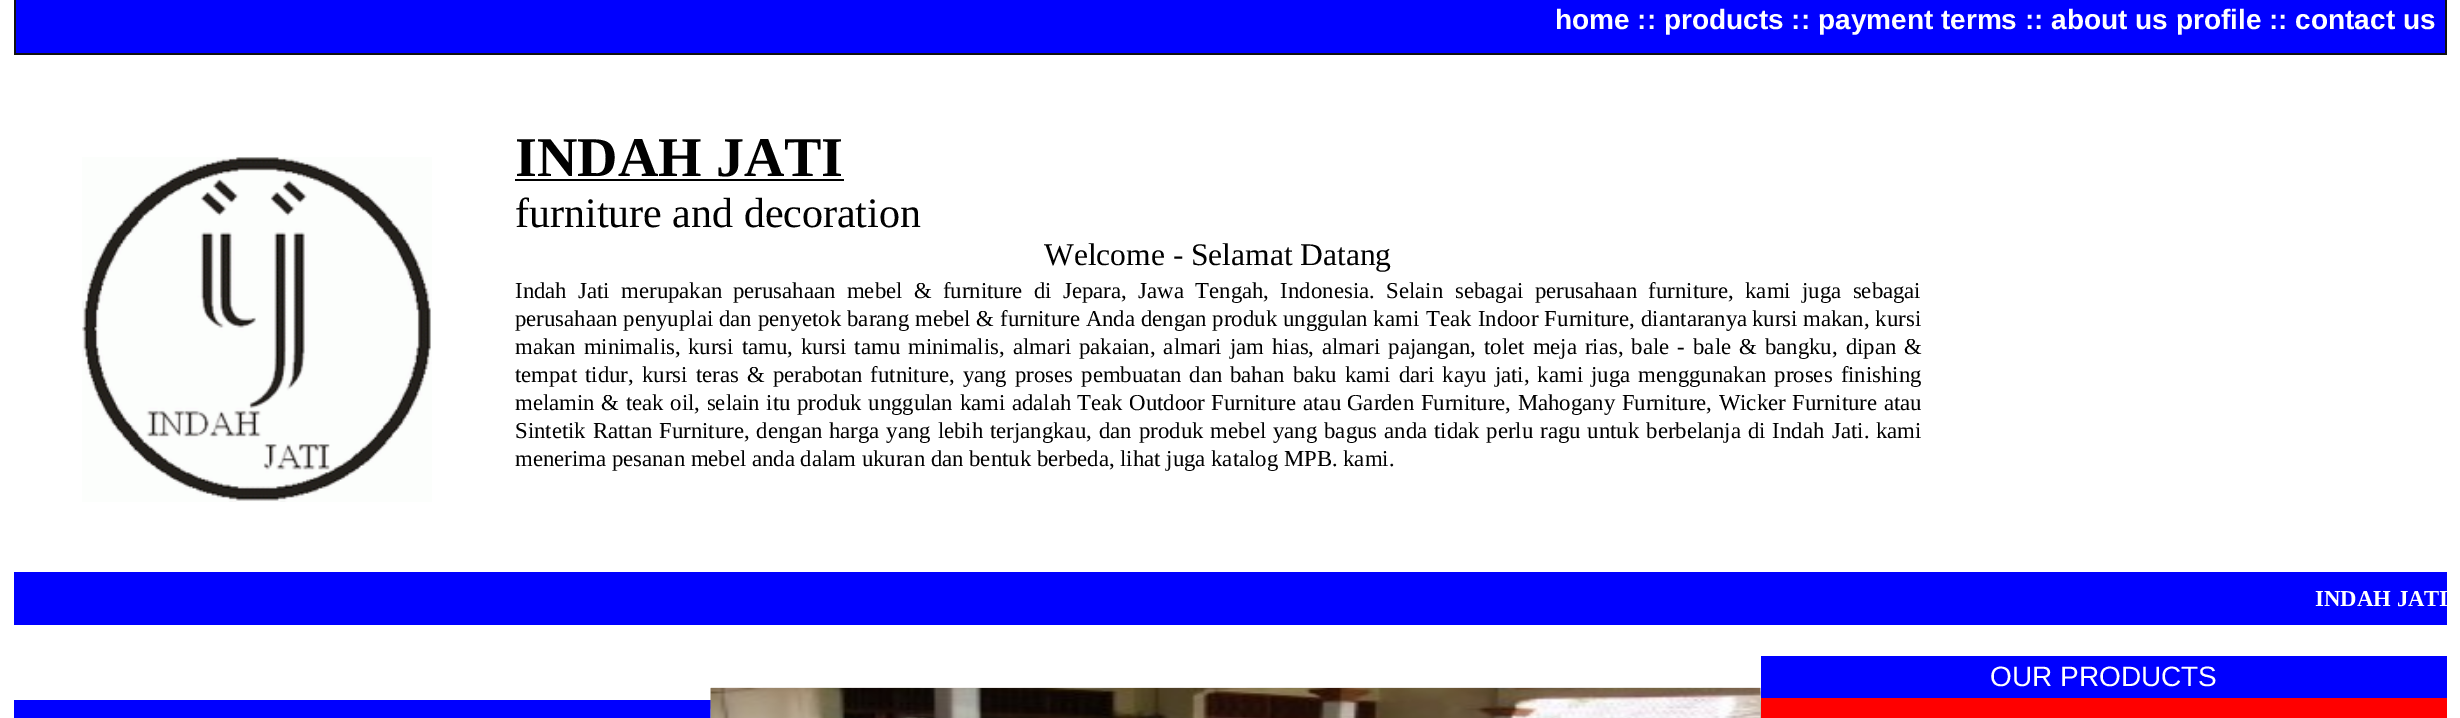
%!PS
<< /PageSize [2460 718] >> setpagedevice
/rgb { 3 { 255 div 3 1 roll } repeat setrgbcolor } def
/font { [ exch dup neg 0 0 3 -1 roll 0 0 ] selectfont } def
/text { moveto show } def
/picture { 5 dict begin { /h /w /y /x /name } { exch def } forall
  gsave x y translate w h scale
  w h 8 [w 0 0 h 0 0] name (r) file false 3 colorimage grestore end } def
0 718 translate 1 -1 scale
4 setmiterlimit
255 255 255 rgb
0 0 2460 718 rectfill
17 17 17 rgb
2445 0 2 54 rectfill
14 53 2433 2 rectfill
14 0 2 54 rectfill
0 0 255 rgb
16 0 2429 53 rectfill
(img_01.rgb) 82 157 350 345 picture
0 0 0 rgb
515 179 329 2 rectfill
0 0 255 rgb
14 572 2433 53 rectfill
1761 656 686 42 rectfill
255 0 0 rgb
1761 698 686 20 rectfill
0 0 255 rgb
14 700 697 18 rectfill
(img_02.rgb) 710 687 1051 31 picture
(img_03.rgb) 710 687 1051 31 picture
(img_04.rgb) 710 687 1051 31 picture
/LiberationSans-Bold 28 font
255 255 255 rgb
(home :: products :: payment terms :: about us profile :: contact us) 1555 29 text
/LiberationSerif-Bold 56 font
0 0 0 rgb
(INDAH JATI) 515 176 text
/LiberationSerif-Regular 42 font
(furniture and decoration) 515 227 text
/LiberationSerif-Regular 31.5 font
(Welcome - Selamat Datang) 1044 265 text
/LiberationSerif-Regular 22.75 font
515 298 moveto 5.75 0 32 (Indah Jati merupakan) widthshow
733 298 moveto 5.75 0 32 (perusahaan mebel & furniture di Jepara, Jawa Tengah, Indonesia. Selain) widthshow
1455 298 moveto 5.75 0 32 (sebagai perusahaan furniture, kami juga sebagai) widthshow
515 326 moveto 0.25 0 32 (perusahaan penyuplai) widthshow
719 326 moveto 0.25 0 32 (dan penyetok barang mebel & furniture Anda dengan produk unggulan kami) widthshow
1426 326 moveto 0.5 0 32 (Teak Indoor Furniture, diantaranya) widthshow
(kursi makan) 1752 326 text
(, kursi) 1864 326 text
515 354 moveto 2.4 0 32 (makan minimalis,) widthshow
688 354 moveto 2.4 0 32 (kursi tamu, kursi tamu minimalis, almari pakaian, almari jam hias,) widthshow
1322 354 moveto 2.4 0 32 (almari pajangan, tolet meja rias, bale - bale & bangku, dipan &) widthshow
(tempat) 515 382 text
585 382 moveto 2.5 0 32 (tidur, kursi teras & perabotan futniture, yang proses pembuatan dan) widthshow
1230 382 moveto 2.5 0 32 (bahan baku kami dari kayu jati, kami juga menggunakan proses finishing) widthshow
515 410 moveto 1 0 32 (melamin & teak oil, selain itu produk unggulan kami adalah) widthshow
1077 410 moveto 1 0 32 (Teak Outdoor) widthshow
(Furniture) 1211 410 text
(atau) 1303 410 text
1347 410 moveto 1 0 32 (Garden Furniture, Mahogany Furniture, Wicker Furniture atau) widthshow
515 438 moveto 1.25 0 32 (Sintetik Rattan Furniture, dengan harga yang lebih terjangkau, dan) widthshow
1139 438 moveto 1.25 0 32 (produk mebel yang bagus anda tidak perlu ragu untuk berbelanja di Indah) widthshow
1832 438 moveto 1 0 32 (Jati. kami) widthshow
(menerima pesanan mebel anda dalam ukuran dan bentuk berbeda, lihat juga katalog MPB. kami.) 515 466 text
/LiberationSerif-Bold 22.75 font
255 255 255 rgb
(INDAH JATI) 2315 606 text
/LiberationSans-Regular 28 font
(OUR PRODUCTS) 1990 686 text
showpage
